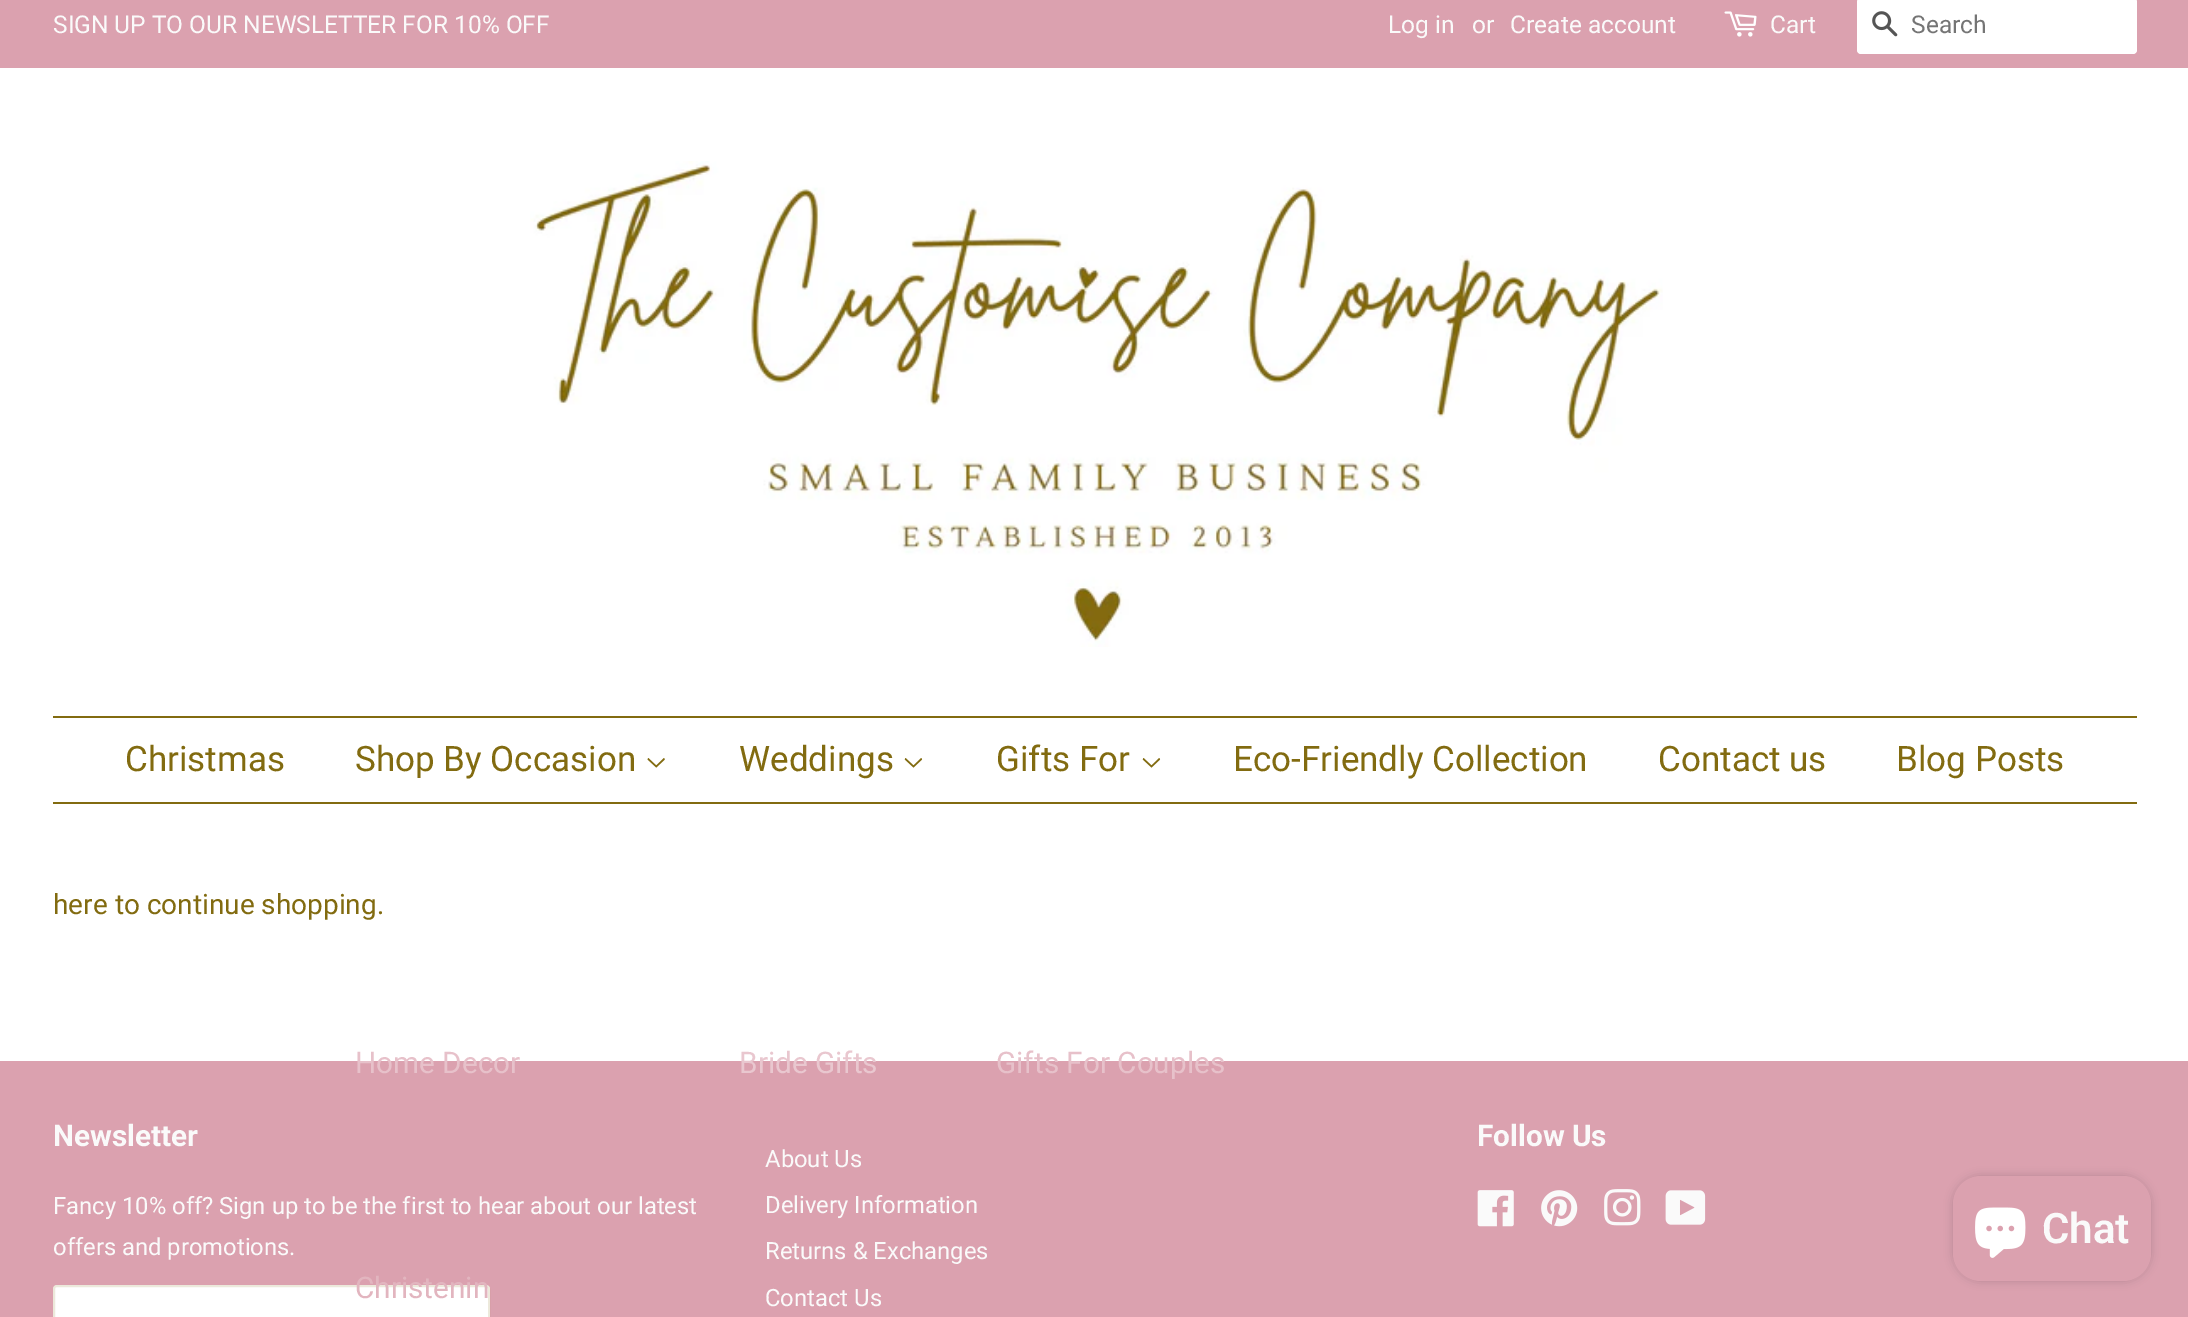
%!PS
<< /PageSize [2188 1317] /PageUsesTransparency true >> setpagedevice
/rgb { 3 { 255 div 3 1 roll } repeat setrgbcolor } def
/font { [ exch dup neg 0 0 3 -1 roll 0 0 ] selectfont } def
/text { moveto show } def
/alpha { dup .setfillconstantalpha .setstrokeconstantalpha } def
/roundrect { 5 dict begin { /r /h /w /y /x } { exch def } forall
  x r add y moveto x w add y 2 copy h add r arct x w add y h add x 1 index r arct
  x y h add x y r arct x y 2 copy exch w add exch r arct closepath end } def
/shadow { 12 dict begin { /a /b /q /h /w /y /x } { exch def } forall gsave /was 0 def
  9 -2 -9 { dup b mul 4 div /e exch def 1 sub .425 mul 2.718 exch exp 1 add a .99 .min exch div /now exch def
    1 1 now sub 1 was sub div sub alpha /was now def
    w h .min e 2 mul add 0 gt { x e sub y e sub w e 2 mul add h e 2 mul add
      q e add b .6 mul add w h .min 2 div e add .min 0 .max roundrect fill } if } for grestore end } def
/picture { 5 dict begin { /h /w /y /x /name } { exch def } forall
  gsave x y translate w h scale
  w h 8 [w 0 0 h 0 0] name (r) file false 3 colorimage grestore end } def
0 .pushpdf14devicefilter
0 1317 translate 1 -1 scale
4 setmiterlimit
255 255 255 rgb
0 0 2188 1317 rectfill
219 161 175 rgb
0 0 2188 68 rectfill
(img_01.rgb) 1724 11 33 26 picture
255 255 255 rgb
1857 -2 280 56 4 roundrect fill
(img_02.rgb) 1872 11 26 26 picture
(img_03.rgb) 530 161 1133 486 picture
130 107 16 rgb
53 716 2084 2 rectfill
53 802 2084 2 rectfill
(img_04.rgb) 647 758 18 10 picture
(img_05.rgb) 904 758 19 10 picture
(img_05.rgb) 1142 758 19 10 picture
219 161 175 rgb
0 1061 2188 256 rectfill
255 255 255 rgb
53 1285 437 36 4 roundrect fill
0.15 alpha
130 107 16 rgb
2 setlinewidth
54 1286 435 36 3 roundrect stroke
1 alpha
(img_06.rgb) 1477 1190 37 37 picture
(img_07.rgb) 1541 1190 37 37 picture
(img_08.rgb) 1604 1189 37 37 picture
(img_09.rgb) 1665 1190 41 35 picture
0 0 0 rgb
1953 1176 198 105 28 4.5 0.15 shadow
219 161 175 rgb
1953 1176 198 105 28 roundrect fill
(img_10.rgb) 1975 1207 51 51 picture
/Roboto-Regular 24.5 font
250 250 250 rgb
(SIGN UP TO OUR NEWSLETTER FOR 10% OFF) 53 33 text
(Log in) 1388 33 text
(or) 1472 33 text
(Create account) 1510 33 text
(Cart) 1770 33 text
117 117 117 rgb
(Search) 1911 33 text
/Roboto-Regular 35 font
130 107 16 rgb
(Christmas) 125 771 text
(Shop By Occasion) 355 771 text
/Roboto-Regular 29.75 font
231 193 202 rgb
(Home Decor) 355 1073 text
226 181 191 rgb
(Christenin) 355 1298 text
/Roboto-Regular 35 font
130 107 16 rgb
(Weddings) 739 771 text
/Roboto-Regular 29.75 font
233 199 207 rgb
(Bride Gifts) 739 1073 text
/Roboto-Regular 35 font
130 107 16 rgb
(Gifts For) 996 771 text
/Roboto-Regular 29.75 font
231 193 202 rgb
(Gifts For Couples) 996 1073 text
/Roboto-Regular 35 font
130 107 16 rgb
(Eco-Friendly Collection) 1233 771 text
(Contact us) 1658 771 text
(Blog Posts) 1896 771 text
/Roboto-Regular 28 font
(here to continue shopping.) 53 914 text
/Roboto-Bold 29.75 font
250 250 250 rgb
(Newsletter) 53 1146 text
/Roboto-Regular 23.8 font
(Fancy 10% off? Sign up to be the first to hear about our latest) 53 1214 text
(offers and promotions.) 53 1255 text
/Roboto-Bold 29.75 font
(Follow Us) 1477 1146 text
/Roboto-Regular 23.8 font
(About Us) 765 1167 text
(Delivery Information) 765 1213 text
(Returns & Exchanges) 765 1259 text
(Contact Us) 765 1306 text
/Roboto-SemiBold 42 font
(Chat) 2042 1243 text
.poppdf14devicefilter showpage
